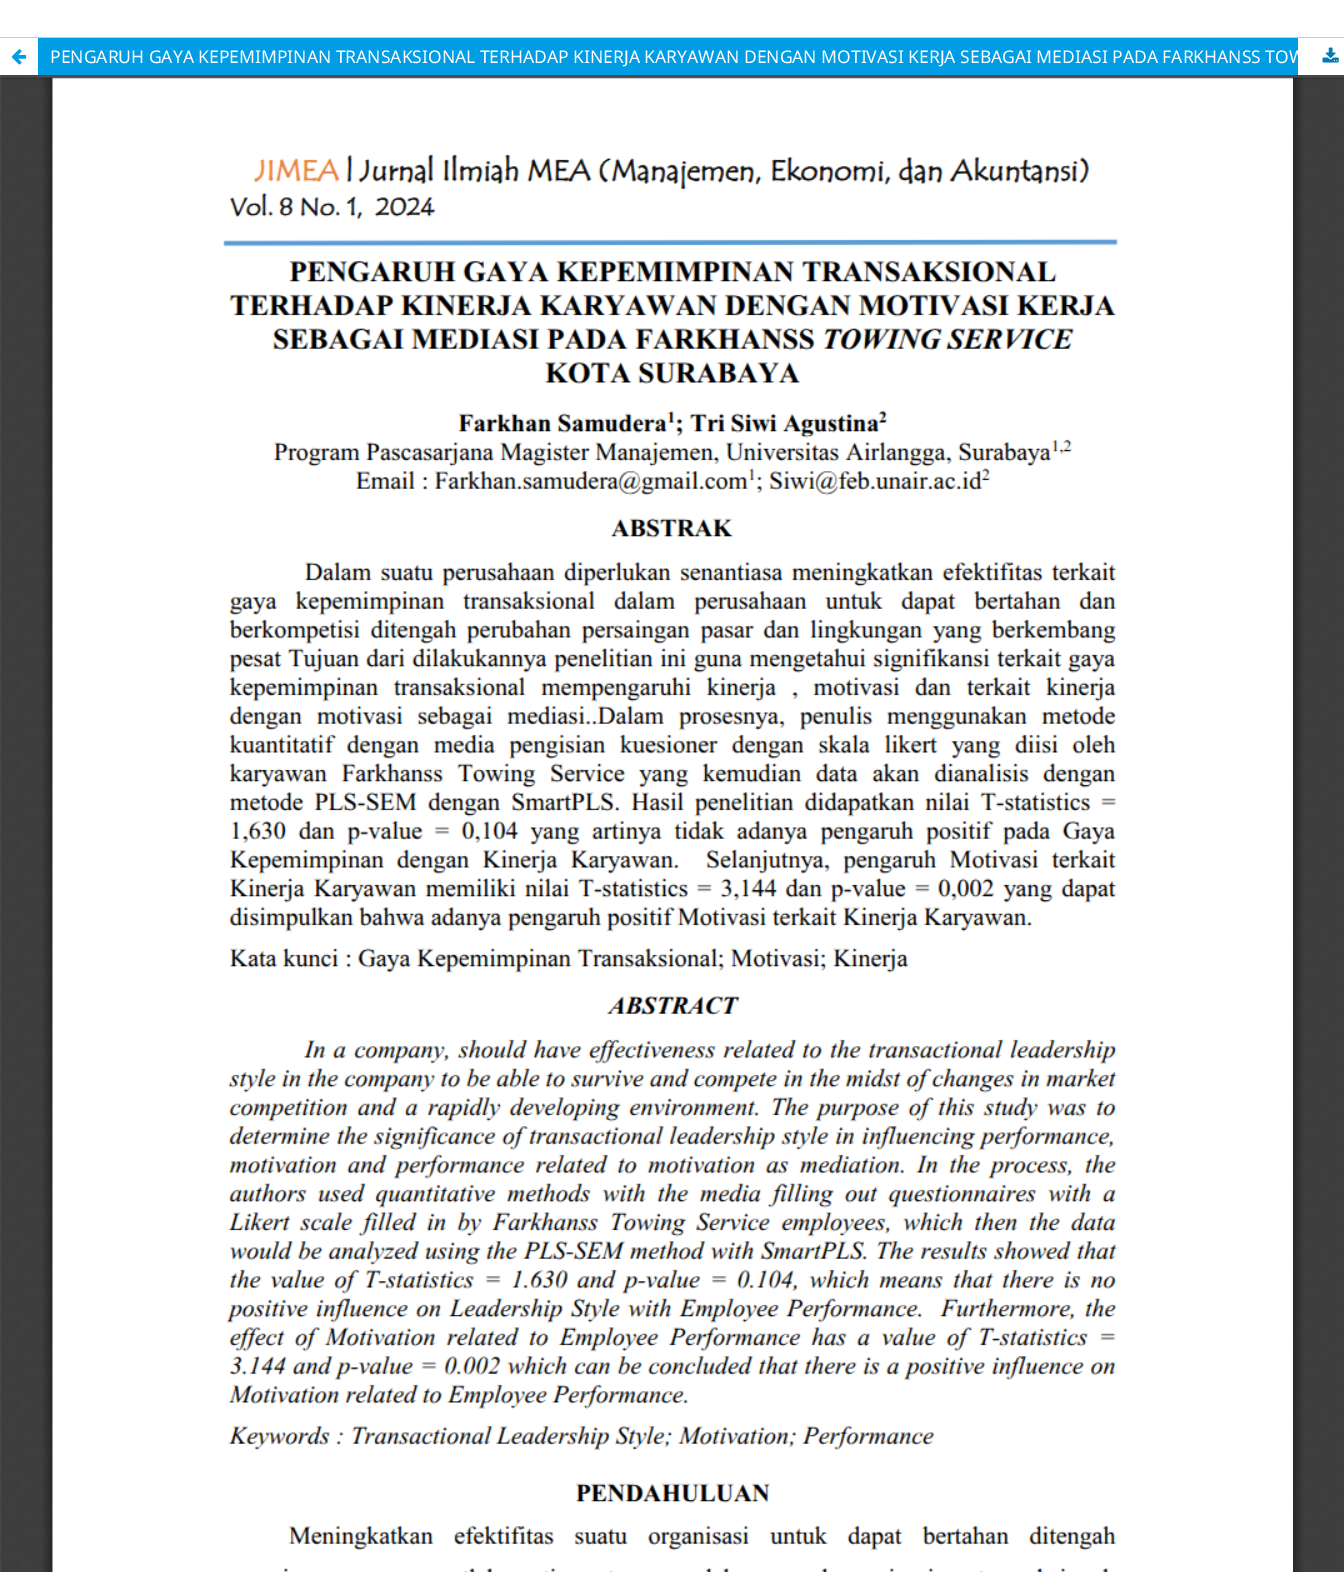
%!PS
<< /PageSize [1344 1572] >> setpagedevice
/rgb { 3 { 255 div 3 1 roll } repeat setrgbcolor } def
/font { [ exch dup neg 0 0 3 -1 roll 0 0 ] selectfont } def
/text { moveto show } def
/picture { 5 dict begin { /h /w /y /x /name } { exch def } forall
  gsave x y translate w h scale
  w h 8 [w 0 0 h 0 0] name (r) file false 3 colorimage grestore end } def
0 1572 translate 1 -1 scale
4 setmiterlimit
255 255 255 rgb
0 0 1344 1572 rectfill
(img_01.rgb) 0 37 1344 1535 picture
0 157 229 rgb
38 38 1260 37 rectfill
255 255 255 rgb
0 38 38 37 rectfill
(img_02.rgb) 11 49 16 16 picture
1298 38 46 37 rectfill
(img_03.rgb) 1322 47 17 16 picture
/NotoSans-Regular 17.5 font
(PENGARUH GAYA KEPEMIMPINAN TRANSAKSIONAL TERHADAP KINERJA KARYAWAN DENGAN MOTIVASI KERJA SEBAGAI MEDIASI PADA FARKHANSS TOW) 50 63 text
showpage
